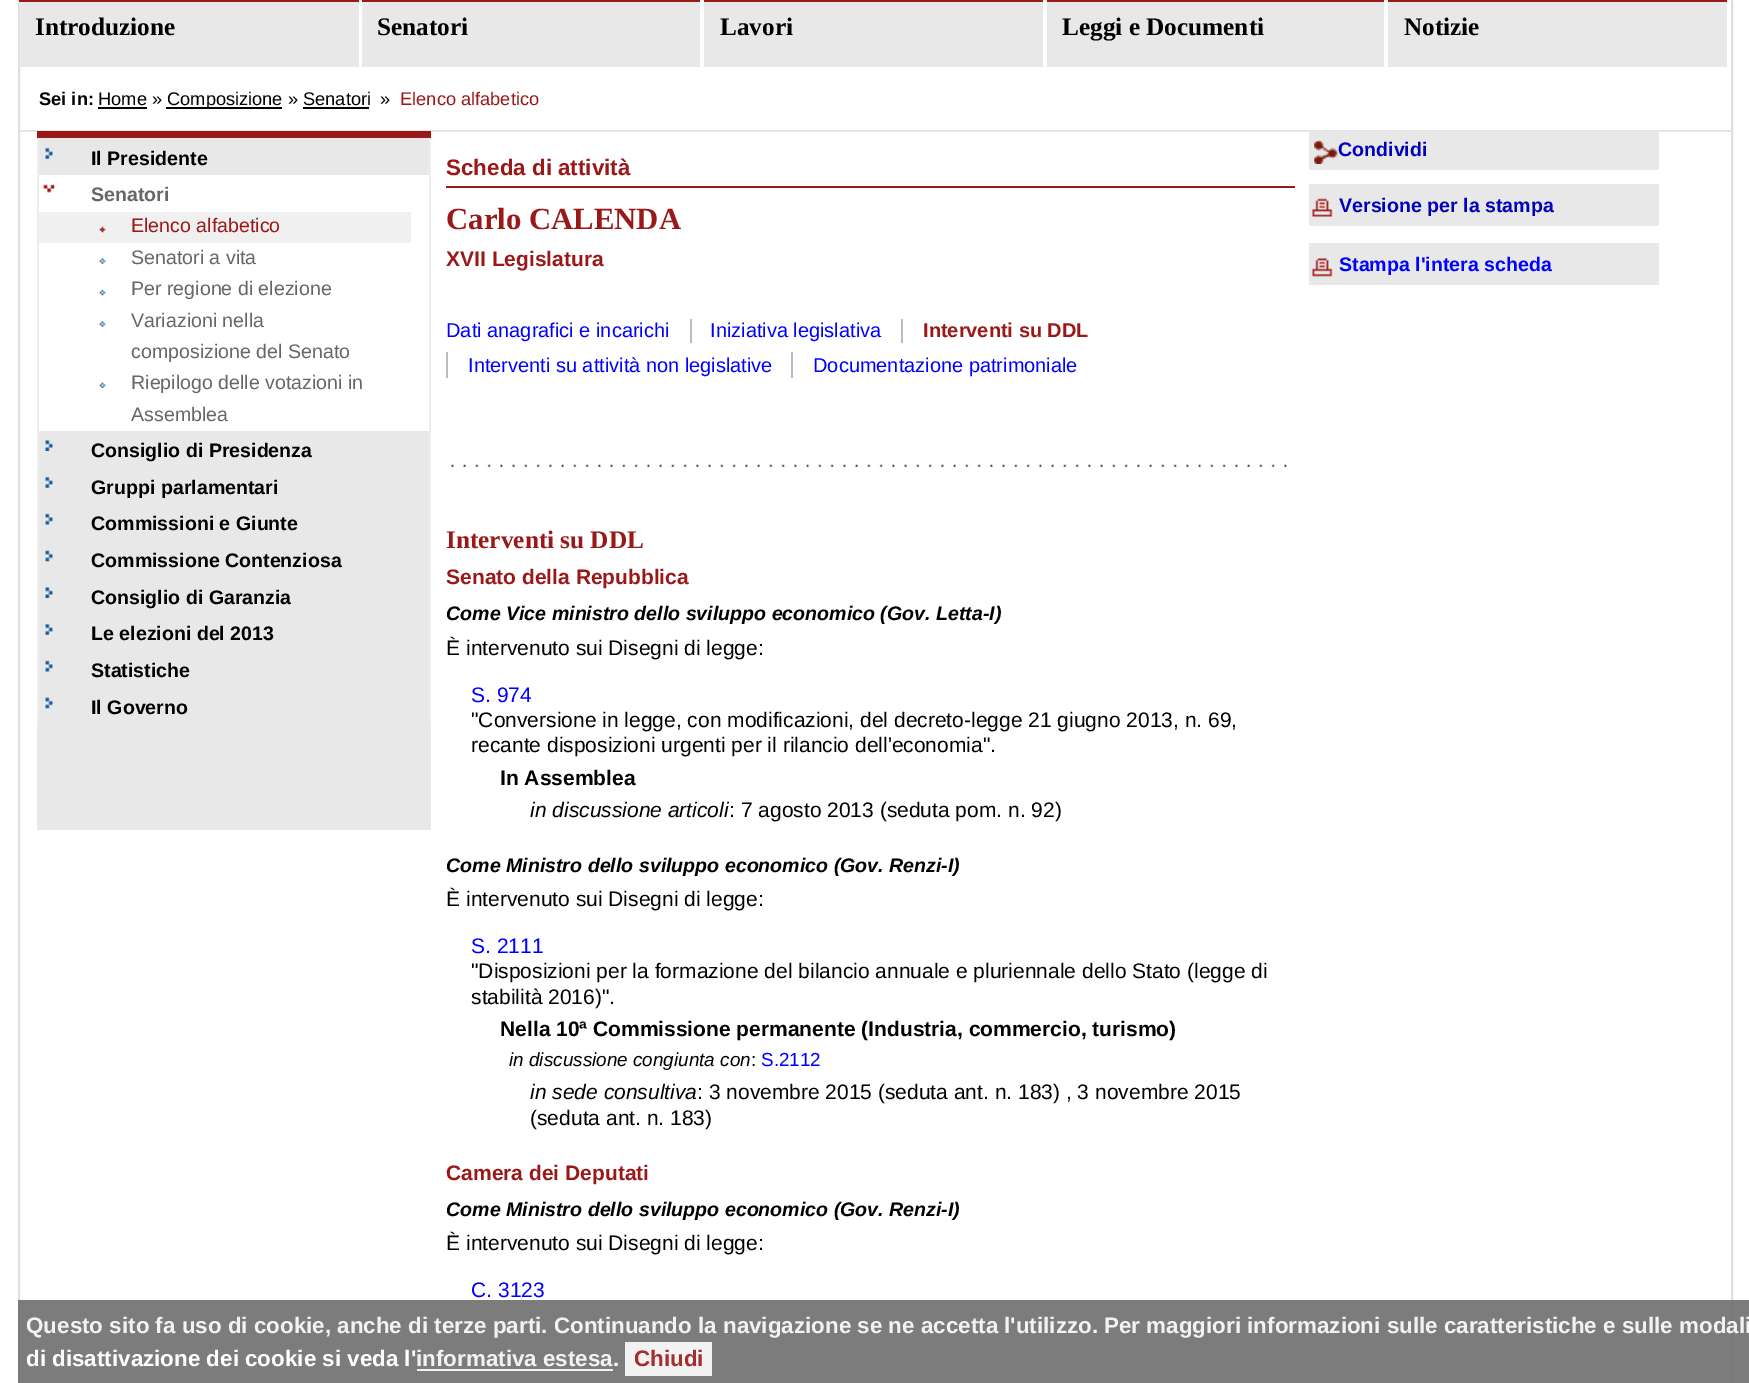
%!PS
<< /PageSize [1749 1383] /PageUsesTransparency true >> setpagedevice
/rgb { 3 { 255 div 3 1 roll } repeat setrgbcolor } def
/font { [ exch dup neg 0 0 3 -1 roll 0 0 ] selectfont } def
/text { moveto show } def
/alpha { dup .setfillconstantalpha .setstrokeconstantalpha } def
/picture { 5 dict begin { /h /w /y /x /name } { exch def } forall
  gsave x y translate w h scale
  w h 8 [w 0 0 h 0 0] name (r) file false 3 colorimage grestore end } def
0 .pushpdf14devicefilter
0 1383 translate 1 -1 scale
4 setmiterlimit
255 255 255 rgb
0 0 1749 1383 rectfill
223 223 223 rgb
2 setlinewidth
19 -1 1713 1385 rectstroke
232 232 232 rgb
19 2 340 65 rectfill
155 24 24 rgb
19 0 340 2 rectfill
232 232 232 rgb
362 2 338 65 rectfill
155 24 24 rgb
362 0 338 2 rectfill
232 232 232 rgb
704 2 339 65 rectfill
155 24 24 rgb
704 0 339 2 rectfill
232 232 232 rgb
1047 2 337 65 rectfill
155 24 24 rgb
1047 0 337 2 rectfill
232 232 232 rgb
1388 2 339 65 rectfill
155 24 24 rgb
1388 0 339 2 rectfill
229 229 229 rgb
19 130 1712 2 rectfill
0 0 0 rgb
98 107 49 2 rectfill
166 107 116 2 rectfill
303 107 66 2 rectfill
232 232 232 rgb
37 138 394 692 rectfill
155 24 24 rgb
37 131 394 7 rectfill
237 237 237 rgb
429 138 2 587 rectfill
37 138 2 587 rectfill
(img_01.rgb) 45 147 8 12 picture
255 255 255 rgb
39 175 390 256 rectfill
(img_02.rgb) 43 184 12 9 picture
240 240 240 rgb
39 212 372 31 rectfill
(img_03.rgb) 99 226 7 7 picture
(img_04.rgb) 99 258 7 6 picture
(img_05.rgb) 99 289 7 7 picture
(img_04.rgb) 99 321 7 6 picture
(img_06.rgb) 99 382 7 6 picture
(img_07.rgb) 45 440 8 11 picture
(img_01.rgb) 45 476 8 12 picture
(img_08.rgb) 45 513 8 12 picture
(img_09.rgb) 45 550 8 12 picture
(img_07.rgb) 45 587 8 11 picture
(img_01.rgb) 45 623 8 12 picture
(img_08.rgb) 45 660 8 12 picture
(img_09.rgb) 45 697 8 12 picture
155 24 24 rgb
446 186 849 2 rectfill
188 188 188 rgb
690 319 2 24 rectfill
901 319 2 24 rectfill
446 352 2 26 rectfill
791 352 2 26 rectfill
(img_10.rgb) 451 464 836 4 picture
231 232 231 rgb
1309 131 350 39 rectfill
(img_11.rgb) 1314 139 24 25 picture
1309 184 350 42 rectfill
(img_12.rgb) 1312 198 21 19 picture
1309 243 350 42 rectfill
(img_13.rgb) 1312 258 21 19 picture
0.9 alpha
110 110 110 rgb
18 1300 1731 83 rectfill
255 255 255 rgb
417 1369 196 2 rectfill
625 1342 87 34 rectfill
/LiberationSerif-Bold 25.25 font
1 alpha
0 0 0 rgb
(Introduzione) 35 35 text
(Senatori) 377 35 text
(Lavori) 720 35 text
(Leggi e Documenti) 1062 35 text
(Notizie) 1404 35 text
/LiberationSans-Bold 18.25 font
(Sei in:) 39 105 text
/LiberationSans-Regular 18.25 font
(Home ») 98 105 text
(Composizione » Senatori) 167 105 text
(») 380 105 text
155 24 24 rgb
(Elenco alfabetico) 400 105 text
/LiberationSans-Bold 19.6 font
0 0 0 rgb
(Il Presidente) 91 165 text
102 102 102 rgb
(Senatori) 91 201 text
/LiberationSans-Regular 19.6 font
155 24 24 rgb
(Elenco alfabetico) 131 232 text
102 102 102 rgb
(Senatori a vita) 131 264 text
(Per regione di elezione) 131 295 text
(Variazioni nella) 131 327 text
(composizione del Senato) 131 358 text
(Riepilogo delle votazioni in) 131 389 text
(Assemblea) 131 421 text
/LiberationSans-Bold 19.6 font
0 0 0 rgb
(Consiglio di Presidenza) 91 457 text
(Gruppi parlamentari) 91 494 text
(Commissioni e Giunte) 91 530 text
(Commissione Contenziosa) 91 567 text
(Consiglio di Garanzia) 91 604 text
(Le elezioni del 2013) 91 640 text
(Statistiche) 91 677 text
(Il Governo) 91 714 text
/LiberationSans-Bold 22.4 font
155 24 24 rgb
(Scheda di attività) 446 175 text
/LiberationSerif-Bold 30.75 font
(Carlo CALENDA) 446 229 text
/LiberationSans-Bold 21 font
(XVII Legislatura) 446 266 text
/LiberationSans-Regular 20 font
0 0 255 rgb
(Dati anagrafici e incarichi) 446 337 text
(Iniziativa legislativa) 710 337 text
/LiberationSans-Bold 20 font
155 24 24 rgb
(Interventi su DDL) 923 337 text
/LiberationSans-Regular 20 font
0 0 255 rgb
(Interventi su attività non legislative) 468 372 text
(Documentazione patrimoniale) 813 372 text
/LiberationSerif-Bold 25.25 font
155 24 24 rgb
(Interventi su DDL) 446 548 text
/LiberationSans-Bold 21 font
(Senato della Repubblica) 446 584 text
/LiberationSans-BoldItalic 19.6 font
0 0 0 rgb
(Come Vice ministro dello sviluppo economico \(Gov. Letta-I\)) 446 620 text
/LiberationSans-Regular 21 font
(È intervenuto sui Disegni di legge:) 446 655 text
0 0 255 rgb
(S. 974) 471 702 text
0 0 0 rgb
("Conversione in legge, con modificazioni, del decreto-legge 21 giugno 2013, n. 69,) 471 727 text
(recante disposizioni urgenti per il rilancio dell'economia".) 471 752 text
/LiberationSans-Bold 21 font
(In Assemblea) 500 785 text
/LiberationSans-Italic 21 font
(in discussione articoli) 530 817 text
/LiberationSans-Regular 21 font
(: 7 agosto 2013 \(seduta pom. n. 92\)) 729 817 text
/LiberationSans-BoldItalic 19.6 font
(Come Ministro dello sviluppo economico \(Gov. Renzi-I\)) 446 872 text
/LiberationSans-Regular 21 font
(È intervenuto sui Disegni di legge:) 446 906 text
0 0 255 rgb
(S. 2111) 471 953 text
0 0 0 rgb
("Disposizioni per la formazione del bilancio annuale e pluriennale dello Stato \(legge di) 471 978 text
(stabilità 2016\)".) 471 1004 text
/LiberationSans-Bold 21 font
(Nella 10ª Commissione permanente \(Industria, commercio, turismo\)) 500 1036 text
/LiberationSans-Italic 18.9 font
(in discussione congiunta con) 509 1066 text
/LiberationSans-Regular 18.9 font
(:) 751 1066 text
0 0 255 rgb
(S.2112) 761 1066 text
/LiberationSans-Italic 21 font
0 0 0 rgb
(in sede consultiva) 530 1099 text
/LiberationSans-Regular 21 font
(: 3 novembre 2015 \(seduta ant. n. 183\) , 3 novembre 2015) 697 1099 text
(\(seduta ant. n. 183\)) 530 1125 text
/LiberationSans-Bold 21 font
155 24 24 rgb
(Camera dei Deputati) 446 1180 text
/LiberationSans-BoldItalic 19.6 font
0 0 0 rgb
(Come Ministro dello sviluppo economico \(Gov. Renzi-I\)) 446 1216 text
/LiberationSans-Regular 21 font
(È intervenuto sui Disegni di legge:) 446 1250 text
0 0 255 rgb
(C. 3123) 471 1297 text
/LiberationSans-Bold 19.6 font
0 0 187 rgb
(Condividi) 1338 156 text
(Versione per la stampa) 1339 212 text
0 0 255 rgb
(Stampa l'intera scheda) 1339 271 text
/LiberationSans-Bold 22.4 font
242 242 242 rgb
(Questo sito fa uso di cookie, anche di terze parti. Continuando la navigazione se ne accetta l'utilizzo. Per maggiori informazioni sulle caratteristiche e sulle modali) 26 1333 text
255 255 255 rgb
(di disattivazione dei cookie si veda l') 26 1366 text
242 242 242 rgb
(informativa estesa) 416 1366 text
255 255 255 rgb
(.) 613 1366 text
164 46 46 rgb
(Chiudi) 634 1366 text
.poppdf14devicefilter showpage
